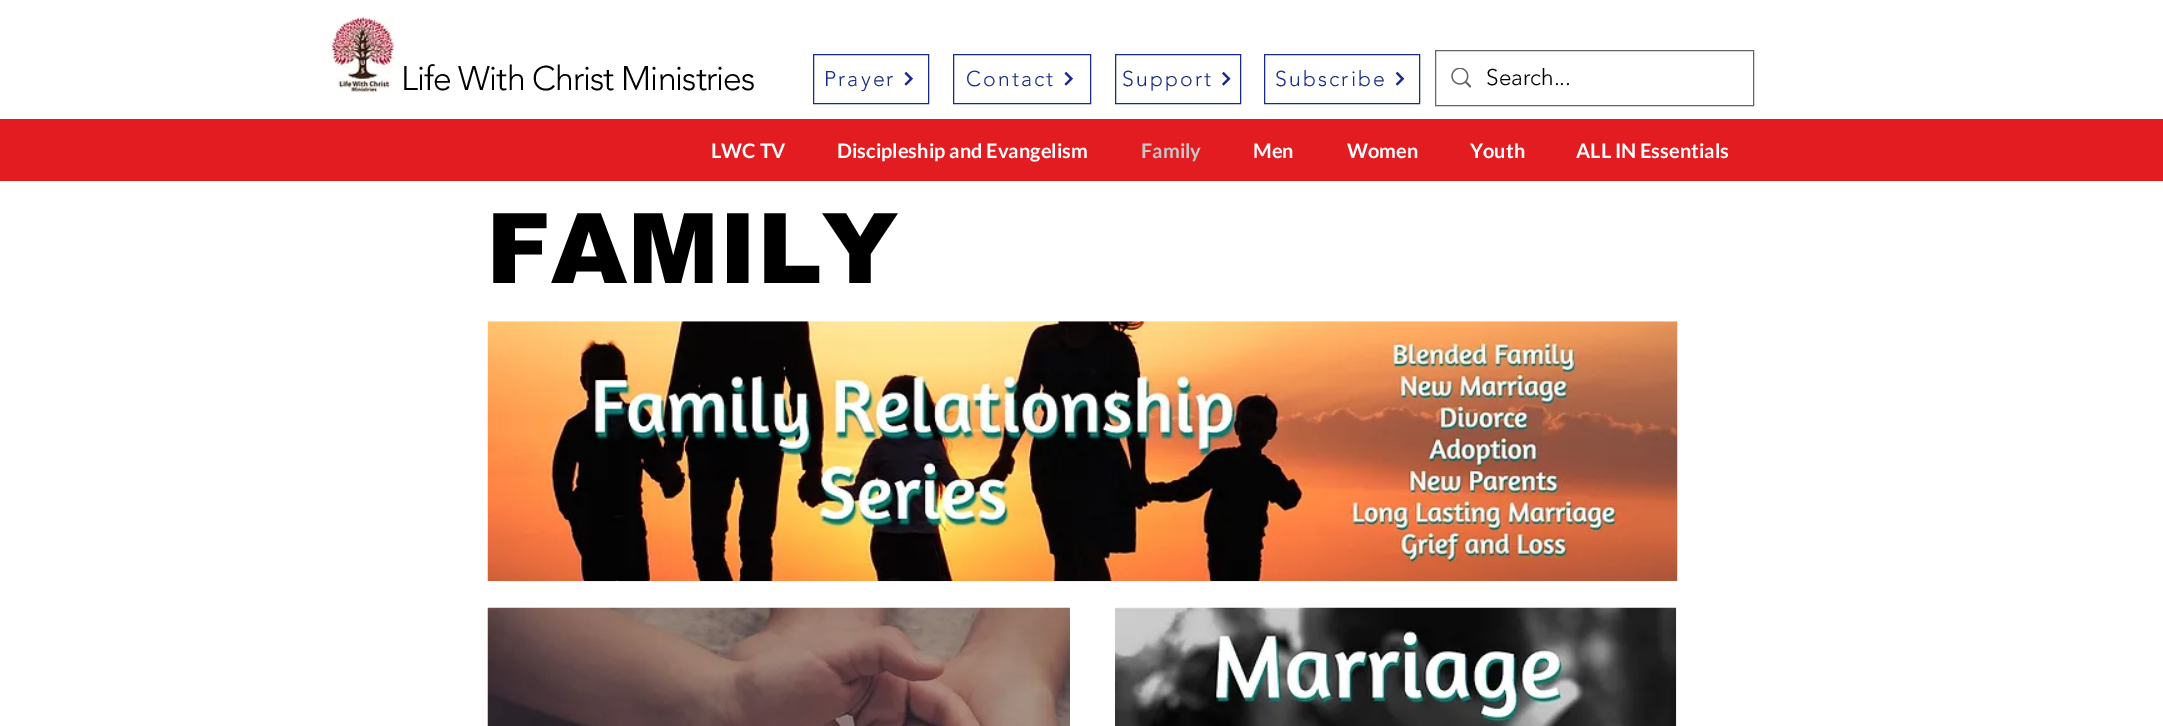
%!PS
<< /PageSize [2163 726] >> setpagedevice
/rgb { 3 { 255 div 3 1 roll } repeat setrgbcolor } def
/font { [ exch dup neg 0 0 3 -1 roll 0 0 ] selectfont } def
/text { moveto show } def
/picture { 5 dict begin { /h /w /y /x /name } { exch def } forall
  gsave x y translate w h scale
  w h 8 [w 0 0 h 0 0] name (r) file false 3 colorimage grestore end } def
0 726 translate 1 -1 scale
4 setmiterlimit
255 255 255 rgb
0 0 2163 726 rectfill
(img_01.rgb) 331 13 65 80 picture
25 42 136 rgb
813.5 54.5 115 49 rectstroke
(img_02.rgb) 904 71 9 15 picture
953.5 54.5 137 49 rectstroke
(img_02.rgb) 1064 71 9 15 picture
1115.5 54.5 125 49 rectstroke
(img_03.rgb) 1222 71 9 15 picture
1264.5 54.5 155 49 rectstroke
(img_04.rgb) 1395 71 10 15 picture
102 102 102 rgb
1435.5 50.5 318 55 rectstroke
(img_05.rgb) 1451 68 20 20 picture
226 28 33 rgb
0 119 2163 62 rectfill
(img_06.rgb) 487 321 1191 261 picture
(img_07.rgb) 487 607 583 119 picture
(img_08.rgb) 1115 607 562 119 picture
/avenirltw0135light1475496-Light 33.75 font
0 0 0 rgb
401 90 moveto -1 0 (Life With Christ Ministries) ashow
/avenirltw0135light1475496-Light 21.25 font
25 42 136 rgb
824 86 moveto 2.1 0 (Prayer) ashow
966 86 moveto 2.1 0 (Contact) ashow
1122 86 moveto 2.1 0 (Support) ashow
1275 86 moveto 2.1 0 (Subscribe) ashow
/avenirltw0135light1475496-Light 22.5 font
0 0 0 rgb
(Search...) 1486 85 text
/Lato-Bold 20 font
255 255 255 rgb
(LWC TV) 711 158 text
(Discipleship and Evangelism) 837 158 text
199 199 199 rgb
(Family) 1141 158 text
255 255 255 rgb
(Men) 1253 158 text
(Women) 1347 158 text
(Youth) 1470 158 text
(ALL IN Essentials) 1576 158 text
/arial-Black 97.5 font
0 0 0 rgb
(FAMILY) 486 283 text
showpage
